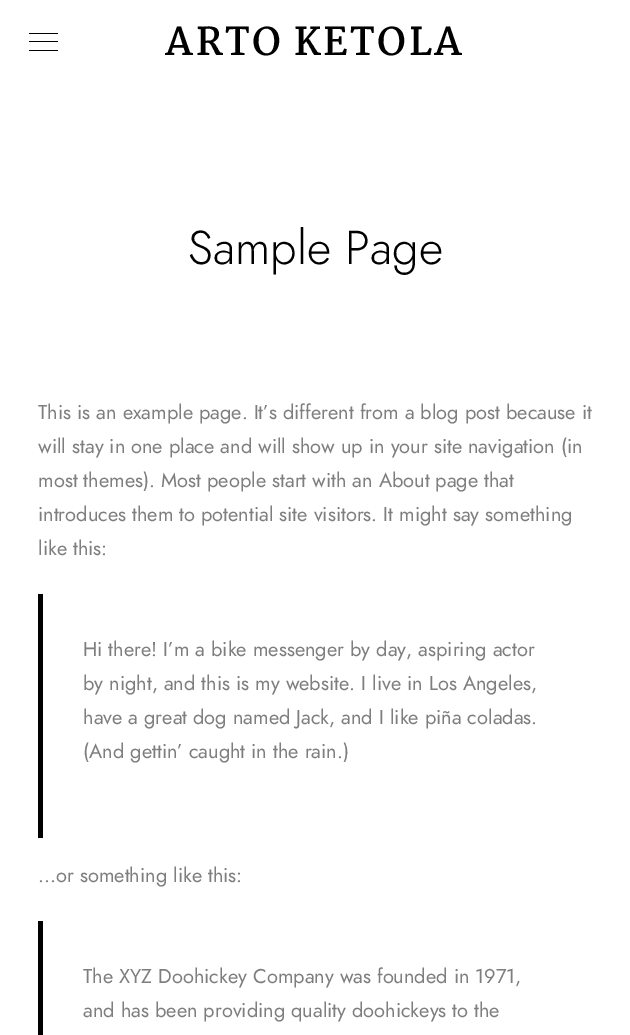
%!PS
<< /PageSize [630 1035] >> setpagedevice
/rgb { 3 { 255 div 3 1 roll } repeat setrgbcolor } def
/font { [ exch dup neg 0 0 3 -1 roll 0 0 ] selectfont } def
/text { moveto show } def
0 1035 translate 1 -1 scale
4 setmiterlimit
255 255 255 rgb
0 0 630 1035 rectfill
0 0 0 rgb
29 41 29 1 rectfill
29 33 29 1 rectfill
29 50 29 1 rectfill
38 594 5 244 rectfill
38 921 5 114 rectfill
/Martel-Bold 37.5 font
165 55 moveto 2.5 0 (ARTO KETOLA) ashow
/Jost-Light 47.5 font
(Sample Page) 188 264 text
/Jost-Regular 20 font
126 126 126 rgb
(This is an example page. It’s different from a blog post because it) 38 419 text
(will stay in one place and will show up in your site navigation \(in) 38 453 text
(most themes\). Most people start with an About page that) 38 487 text
(introduces them to potential site visitors. It might say something) 38 521 text
(like this:) 38 555 text
(Hi there! I’m a bike messenger by day, aspiring actor) 83 656 text
(by night, and this is my website. I live in Los Angeles,) 83 690 text
(have a great dog named Jack, and I like piña coladas.) 83 724 text
(\(And gettin’ caught in the rain.\)) 83 758 text
(…or something like this:) 38 882 text
(The XYZ Doohickey Company was founded in 1971,) 83 983 text
(and has been providing quality doohickeys to the) 83 1017 text
showpage
